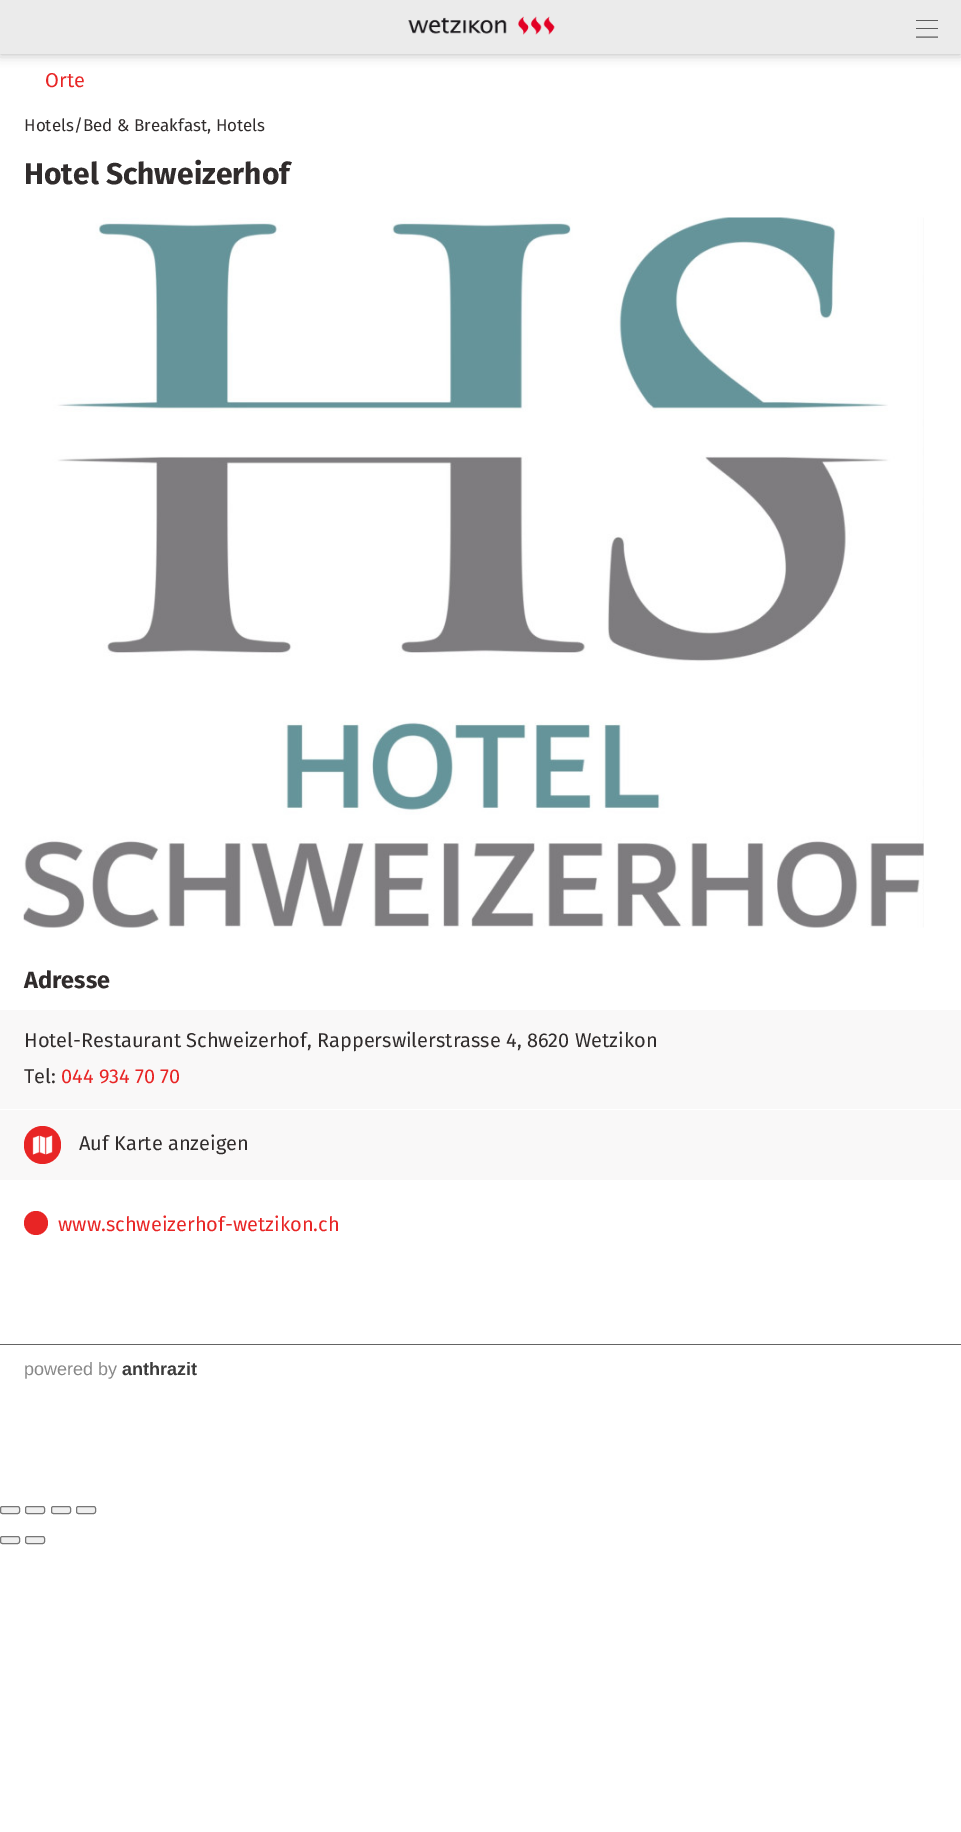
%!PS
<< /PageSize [961 1832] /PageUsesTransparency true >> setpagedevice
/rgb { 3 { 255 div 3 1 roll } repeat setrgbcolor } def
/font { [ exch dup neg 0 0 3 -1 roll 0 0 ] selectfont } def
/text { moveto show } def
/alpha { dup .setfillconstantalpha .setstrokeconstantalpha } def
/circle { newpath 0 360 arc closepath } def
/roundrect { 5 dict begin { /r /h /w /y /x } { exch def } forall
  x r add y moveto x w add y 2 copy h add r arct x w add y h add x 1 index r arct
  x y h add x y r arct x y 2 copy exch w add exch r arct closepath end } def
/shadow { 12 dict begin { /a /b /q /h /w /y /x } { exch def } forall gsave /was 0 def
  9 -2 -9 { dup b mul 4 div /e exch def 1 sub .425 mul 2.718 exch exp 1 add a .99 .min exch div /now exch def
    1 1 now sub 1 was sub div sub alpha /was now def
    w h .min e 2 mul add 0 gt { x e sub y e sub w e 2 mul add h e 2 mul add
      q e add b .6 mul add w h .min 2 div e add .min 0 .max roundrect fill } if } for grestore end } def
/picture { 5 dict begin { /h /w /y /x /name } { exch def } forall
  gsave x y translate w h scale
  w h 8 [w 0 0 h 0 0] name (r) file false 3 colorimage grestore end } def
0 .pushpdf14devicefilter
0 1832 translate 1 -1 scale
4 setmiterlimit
255 255 255 rgb
0 0 961 1832 rectfill
0 0 0 rgb
0 0 961 54 0 6 0.3 shadow
235 235 235 rgb
0 0 961 54 rectfill
(img_01.rgb) 408 16 147 19 picture
92 92 92 rgb
916 20 22 1 rectfill
916 28 22 1 rectfill
1.1 setlinewidth
1 setlinejoin
916 37 moveto 22 0 rlineto stroke
(img_02.rgb) 23 217 901 711 picture
249 248 248 rgb
0 1010 961 99 rectfill
0 1110 961 70 rectfill
232 37 37 rgb
24 1126 37 38 18.5 roundrect fill
(img_03.rgb) 32 1135 21 20 picture
36 1223 12 circle fill
100 100 100 rgb
0 1344 961 1 rectfill
239 239 239 rgb
0.5 1506.5 19 7 2 roundrect gsave fill grestore
118 118 118 rgb
1 setlinewidth
0 setlinejoin
stroke
239 239 239 rgb
25.5 1506.5 19 7 2 roundrect gsave fill grestore
118 118 118 rgb
stroke
239 239 239 rgb
51.5 1506.5 19 7 2 roundrect gsave fill grestore
118 118 118 rgb
stroke
239 239 239 rgb
76.5 1506.5 19 7 2 roundrect gsave fill grestore
118 118 118 rgb
stroke
239 239 239 rgb
0.5 1536.5 19 7 2 roundrect gsave fill grestore
118 118 118 rgb
stroke
239 239 239 rgb
25.5 1536.5 19 7 2 roundrect gsave fill grestore
118 118 118 rgb
stroke
/FiraSans-Regular 20 font
232 37 37 rgb
(Orte) 45 87 text
/FiraSans-Regular 17 font
48 44 44 rgb
(Hotels/Bed & Breakfast, Hotels) 24 131 text
/FiraSans-Bold 30 font
(Hotel Schweizerhof) 24 184 text
/FiraSans-Bold 23.5 font
(Adresse) 24 988 text
/FiraSans-Regular 20 font
(Hotel-Restaurant Schweizerhof, Rapperswilerstrasse 4, 8620 Wetzikon) 24 1047 text
(Tel:) 24 1083 text
232 37 37 rgb
(044 934 70 70) 61 1083 text
48 44 44 rgb
(Auf Karte anzeigen) 79 1150 text
232 37 37 rgb
(www.schweizerhof-wetzikon.ch) 58 1231 text
/LiberationSans-Regular 18 font
136 136 136 rgb
(powered by) 24 1375 text
/LiberationSans-Bold 18 font
59 59 59 rgb
(anthrazit) 122 1375 text
.poppdf14devicefilter showpage
